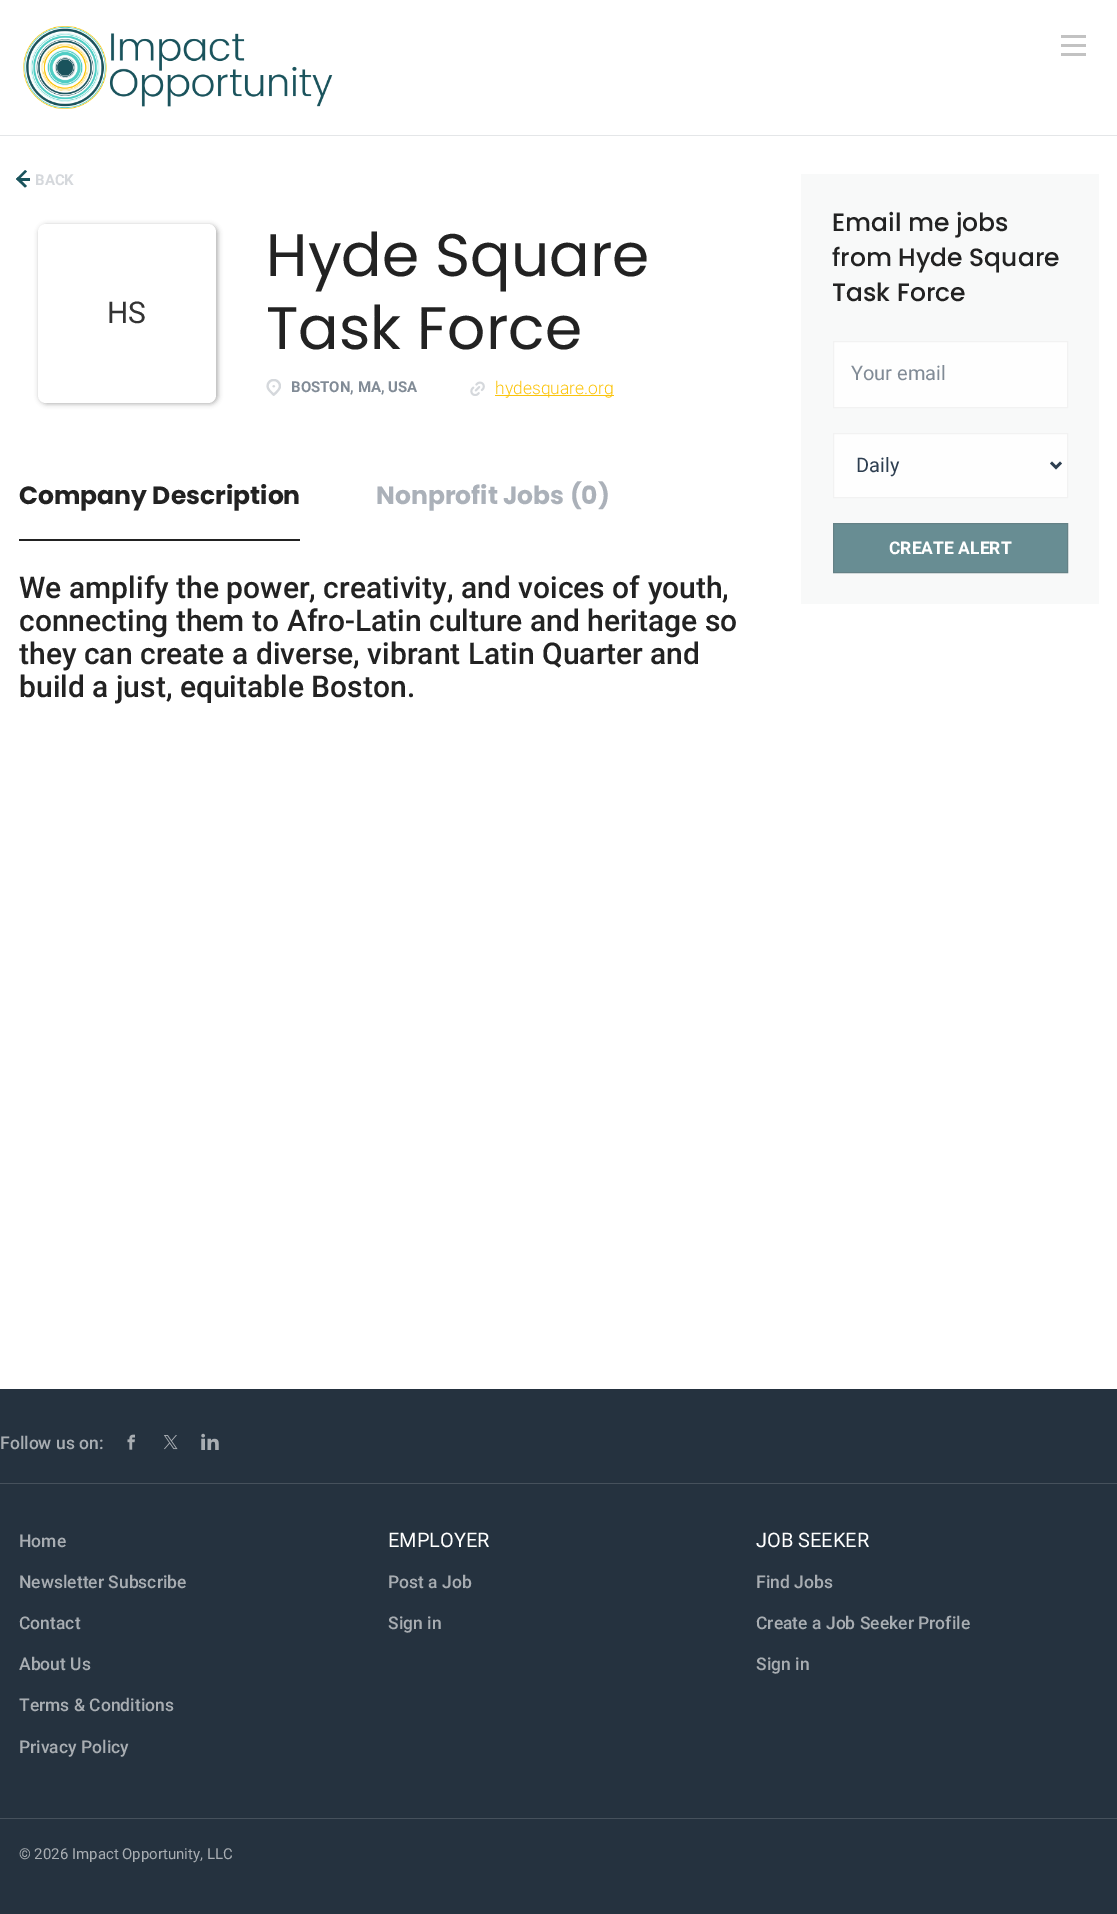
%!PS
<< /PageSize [1117 1914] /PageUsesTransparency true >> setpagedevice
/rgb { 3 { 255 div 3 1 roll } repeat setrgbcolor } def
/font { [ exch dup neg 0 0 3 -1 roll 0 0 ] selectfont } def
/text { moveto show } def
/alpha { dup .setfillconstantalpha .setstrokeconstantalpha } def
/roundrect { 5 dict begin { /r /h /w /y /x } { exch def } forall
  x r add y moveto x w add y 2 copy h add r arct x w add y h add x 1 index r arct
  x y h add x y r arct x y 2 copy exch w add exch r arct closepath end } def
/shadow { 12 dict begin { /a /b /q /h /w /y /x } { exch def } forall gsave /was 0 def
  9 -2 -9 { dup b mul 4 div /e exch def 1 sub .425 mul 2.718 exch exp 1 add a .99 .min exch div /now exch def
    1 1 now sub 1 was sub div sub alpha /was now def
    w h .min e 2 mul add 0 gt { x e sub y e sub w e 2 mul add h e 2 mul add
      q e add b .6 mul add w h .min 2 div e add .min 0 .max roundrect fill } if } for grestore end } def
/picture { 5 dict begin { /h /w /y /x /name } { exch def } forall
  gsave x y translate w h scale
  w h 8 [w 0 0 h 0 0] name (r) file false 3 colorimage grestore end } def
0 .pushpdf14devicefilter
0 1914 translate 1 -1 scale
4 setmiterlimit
255 255 255 rgb
0 0 1117 1914 rectfill
228 230 232 rgb
0 135 1117 1 rectfill
(img_01.rgb) 23 26 310 83 picture
194 194 194 rgb
1061 44 25 3 rectfill
1061 35 25 3 rectfill
1061 53 25 3 rectfill
26 83 92 rgb
18 177 moveto 9 9 rlineto -2 1.5 rlineto -9 -8.5 rlineto closepath fill
25 170 moveto 2 1.5 rlineto -9 9 rlineto -2 -1.5 rlineto closepath fill
19 178 11 3 rectfill
0 0 0 rgb
39 225 179 179 8 2.5 0.3 shadow
255 255 255 rgb
38 224 178 179 8 roundrect fill
(img_02.rgb) 266 379 15 17 picture
(img_03.rgb) 470 381 15 15 picture
251 196 12 rgb
495 395 119 1 rectfill
34 34 34 rgb
19 539 281 2 rectfill
248 249 249 rgb
801 174 298 430 rectfill
254 254 254 rgb
833.5 341.5 moveto 234 0 rlineto 0 66 rlineto -234 0 rlineto closepath gsave fill grestore
242 242 242 rgb
stroke
254 254 254 rgb
833.5 433.5 moveto 234 0 rlineto 0 64 rlineto -234 0 rlineto closepath gsave fill grestore
242 242 242 rgb
stroke
45 62 80 rgb
2.5 setlinewidth
1051 462.5 moveto 5 5 rlineto 5 -5 rlineto stroke
104 141 147 rgb
833.5 523.5 moveto 234 0 rlineto 0 49 rlineto -234 0 rlineto closepath gsave fill grestore
100 129 134 rgb
1 setlinewidth
stroke
37 50 63 rgb
0 1389 1117 525 rectfill
70 81 92 rgb
0 1483 1117 1 rectfill
(img_04.rgb) 127 1434 8 16 picture
(img_05.rgb) 164 1435 14 15 picture
(img_06.rgb) 201 1433 18 17 picture
0 1818 1117 1 rectfill
/Roboto-Bold 15 font
213 216 220 rgb
(BACK) 35 185 text
/Roboto-Regular 30 font
51 51 51 rgb
(HS) 107 323 text
/Poppins-Regular 60 font
34 34 34 rgb
(Hyde Square) 266 276 text
(Task Force) 266 349 text
/Roboto-Bold 15 font
129 139 150 rgb
(BOSTON, MA, USA) 291 392 text
/Roboto-Light 17.5 font
251 196 12 rgb
(hydesquare.org) 495 394 text
/Poppins-Bold 25 font
34 34 34 rgb
(Company Description) 19 504 text
171 177 185 rgb
(Nonprofit Jobs \(0\)) 376 504 text
/Roboto-Medium 30 font
34 34 34 rgb
(We amplify the power, creativity, and voices of youth,) 19 598 text
(connecting them to Afro-Latin culture and heritage so) 19 631 text
(they can create a diverse, vibrant Latin Quarter and) 19 664 text
(build a just, equitable Boston.) 19 697 text
/Poppins-Medium 25 font
(Email me jobs) 832 231 text
(from Hyde Square) 832 266 text
(Task Force) 832 301 text
/Roboto-Regular 20 font
129 139 150 rgb
(Your email) 851 380 text
45 62 80 rgb
(Daily) 856 472 text
/Roboto-Bold 17.5 font
255 255 255 rgb
(CREATE ALERT) 889 554 text
/Roboto-Medium 17.5 font
168 173 178 rgb
(Follow us on:) 0 1449 text
(Home) 19 1547 text
(Newsletter Subscribe) 19 1588 text
(Contact) 19 1629 text
(About Us) 19 1670 text
(Terms & Conditions) 19 1711 text
(Privacy Policy) 19 1753 text
/Roboto-Regular 20 font
255 255 255 rgb
(EMPLOYER) 388 1547 text
/Roboto-Medium 17.5 font
168 173 178 rgb
(Post a Job) 388 1588 text
(Sign in) 388 1629 text
/Roboto-Regular 20 font
255 255 255 rgb
(JOB SEEKER) 756 1547 text
/Roboto-Medium 17.5 font
168 173 178 rgb
(Find Jobs) 756 1588 text
(Create a Job Seeker Profile) 756 1629 text
(Sign in) 756 1670 text
/Roboto-Regular 15 font
(© 2026 Impact Opportunity, LLC) 19 1859 text
.poppdf14devicefilter showpage
